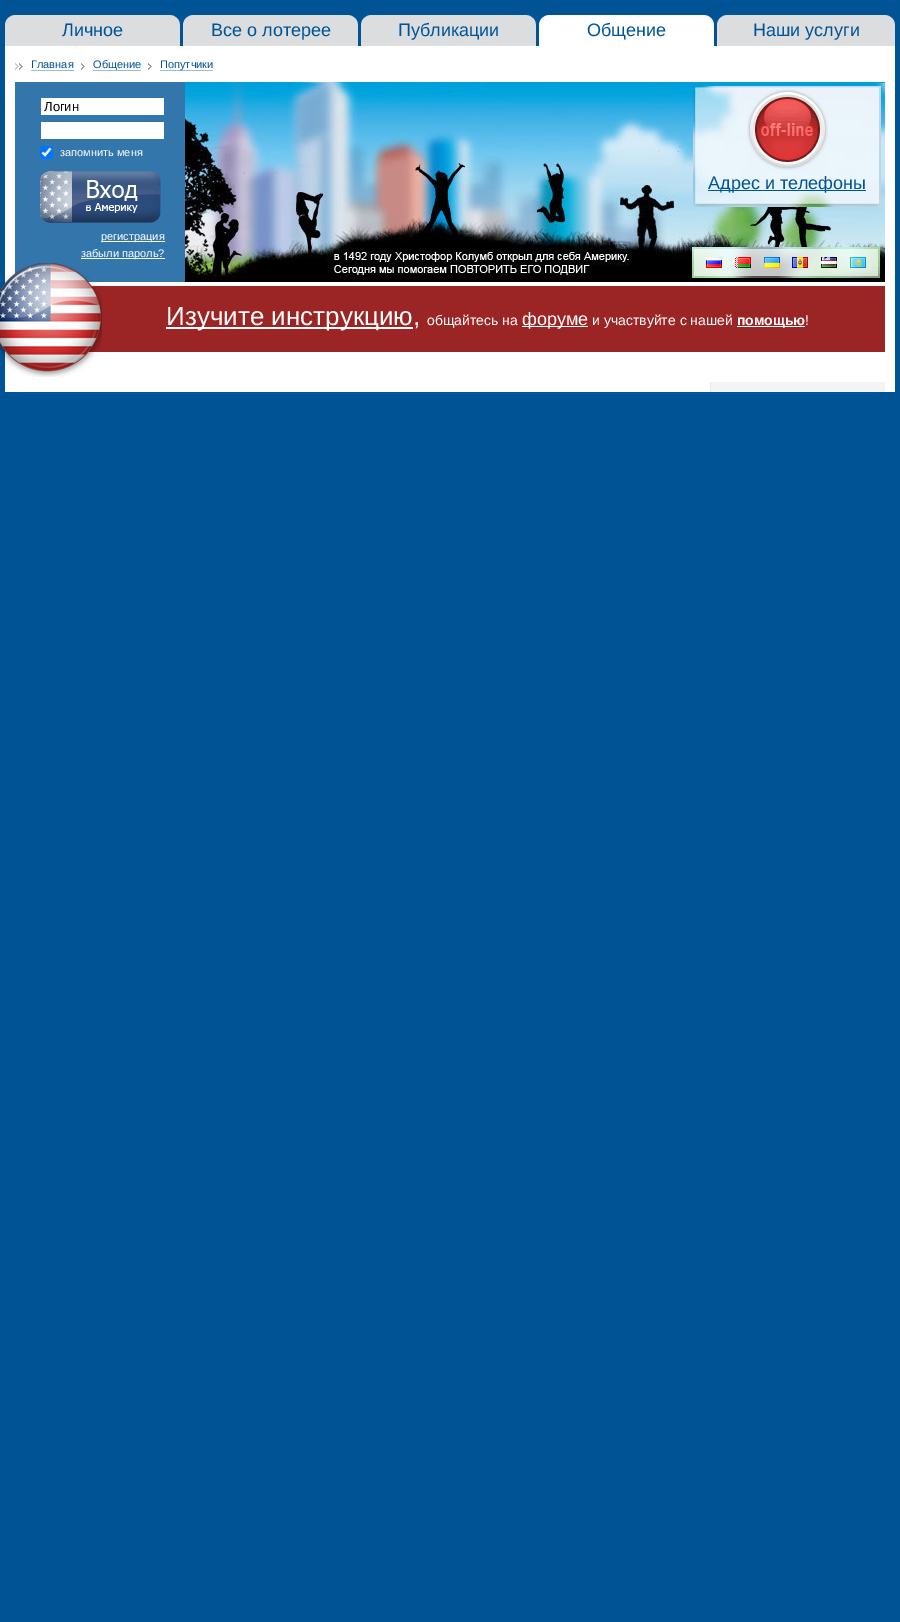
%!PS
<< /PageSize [900 1622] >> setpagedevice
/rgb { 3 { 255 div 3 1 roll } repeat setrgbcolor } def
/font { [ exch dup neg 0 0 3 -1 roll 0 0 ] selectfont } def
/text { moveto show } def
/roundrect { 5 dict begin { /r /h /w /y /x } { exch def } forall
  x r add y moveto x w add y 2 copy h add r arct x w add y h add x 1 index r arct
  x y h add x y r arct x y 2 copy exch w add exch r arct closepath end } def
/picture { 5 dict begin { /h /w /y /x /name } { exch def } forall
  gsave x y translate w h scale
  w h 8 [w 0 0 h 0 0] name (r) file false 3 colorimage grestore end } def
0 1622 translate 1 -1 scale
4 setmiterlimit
0 84 150 rgb
0 0 900 1622 rectfill
255 255 255 rgb
5 46 890 346 rectfill
219 221 222 rgb
5 15 175 31 rectfill
(img_01.rgb) 5 15 10 10 picture
(img_02.rgb) 171 15 9 10 picture
183 15 175 31 rectfill
(img_01.rgb) 183 15 10 10 picture
(img_02.rgb) 349 15 9 10 picture
361 15 175 31 rectfill
(img_01.rgb) 361 15 10 10 picture
(img_02.rgb) 527 15 9 10 picture
255 255 255 rgb
539 15 175 31 rectfill
(img_03.rgb) 539 15 9 10 picture
(img_04.rgb) 705 15 9 10 picture
219 221 222 rgb
717 15 178 31 rectfill
(img_01.rgb) 717 15 10 10 picture
(img_02.rgb) 886 15 9 10 picture
(img_05.rgb) 15 63 8 7 picture
153 189 218 rgb
31 70 43 1 rectfill
(img_06.rgb) 81 63 4 7 picture
93 70 48 1 rectfill
(img_06.rgb) 148 63 4 7 picture
160 70 53 1 rectfill
(img_07.rgb) 185 82 700 200 picture
51 118 171 rgb
15 82 170 200 rectfill
255 255 255 rgb
41 98 123 17 rectfill
41 122 123 17 rectfill
0 117 255 rgb
40 146 13 13 2 roundrect fill
255 255 255 rgb
2.1 setlinewidth
42.5 152.5 moveto 2.5 2.5 rlineto 5.5 -6.5 rlineto stroke
(img_08.rgb) 40 171 121 52 picture
101 241 64 1 rectfill
81 258 84 1 rectfill
(img_09.rgb) 693 86 188 121 picture
(img_10.rgb) 747 88 81 82 picture
0 84 150 rgb
708 190 158 1 rectfill
(img_11.rgb) 692 247 188 31 picture
(img_12.rgb) 706 257 16 11 picture
(img_13.rgb) 735 257 16 11 picture
(img_14.rgb) 764 257 16 11 picture
(img_15.rgb) 792 257 16 11 picture
(img_16.rgb) 821 257 16 11 picture
(img_17.rgb) 850 257 16 11 picture
155 36 36 rgb
88 286 797 66 rectfill
(img_18.rgb) 0 263 102 114 picture
255 255 255 rgb
166 327 247 2 rectfill
522 326 66 1 rectfill
737 326 68 1 rectfill
243 244 244 rgb
711 382 174 10 rectfill
232 233 234 rgb
710 382 1 10 rectfill
/LiberationSans-Regular 18 font
0 84 150 rgb
(Личное) 62 36 text
(Все о лотерее) 211 36 text
(Публикации) 398 36 text
(Общение) 587 36 text
(Наши услуги) 753 36 text
/LiberationSans-Regular 11 font
(Главная) 31 68 text
(Общение) 93 68 text
(Попутчики) 160 68 text
/LiberationSans-Regular 13 font
0 0 0 rgb
(Логин) 44 111 text
/LiberationSans-Regular 11 font
255 255 255 rgb
(запомнить меня) 60 156 text
(регистрация) 101 240 text
(забыли пароль?) 81 257 text
/LiberationSans-Regular 18 font
0 84 150 rgb
(Адрес и телефоны) 708 189 text
/LiberationSans-Regular 26 font
255 255 255 rgb
(Изучите инструкцию,) 166 325 text
/LiberationSans-Regular 14 font
(общайтесь на) 427 325 text
/LiberationSans-Regular 18 font
(форуме) 522 325 text
/LiberationSans-Regular 14 font
(и участвуйте с нашей) 592 325 text
/LiberationSans-Bold 14 font
(помощью) 737 325 text
/LiberationSans-Regular 14 font
(!) 805 325 text
showpage
